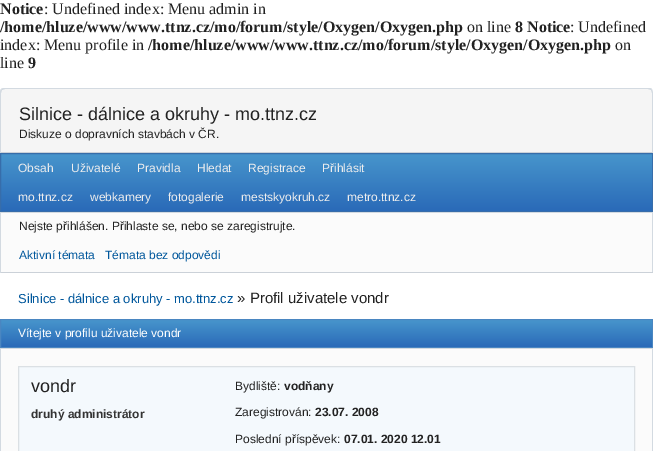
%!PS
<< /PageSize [653 451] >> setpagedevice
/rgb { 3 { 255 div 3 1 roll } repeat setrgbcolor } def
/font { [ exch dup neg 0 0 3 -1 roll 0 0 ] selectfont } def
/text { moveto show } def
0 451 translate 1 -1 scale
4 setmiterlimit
255 255 255 rgb
0 0 653 451 rectfill
245 245 245 rgb
5 88 moveto 643 0 rlineto 3 0 5 2 5 5 rcurveto 0 60 rlineto -653 0 rlineto 0 -60 rlineto 0 -3 2 -5 5 -5 rcurveto closepath fill
211 218 225 rgb
5 88 moveto -1 0 -3 0 -4 1 rcurveto 1 1 rlineto 1 0 2 -1 3 -1 rcurveto 643 0 rlineto 1 0 2 1 3 1 rcurveto 1 -1 rlineto -1 -1 -2 -1 -4 -1 rcurveto closepath fill
653 153 moveto 0 -60 rlineto 0 -1 -1 -3 -1 -4 rcurveto -1 1 rlineto 1 3 rlineto 0 59 rlineto closepath fill
203 209 216 rgb
653 153 moveto -1 -1 rlineto -651 0 rlineto -1 1 rlineto closepath fill
211 218 225 rgb
0 153 moveto 1 -1 rlineto 0 -59 rlineto 1 -3 rlineto -1 -1 rlineto -1 1 -1 3 -1 4 rcurveto closepath fill
gsave 1 154 moveto 651 0 rlineto 0 57 rlineto -651 0 rlineto closepath clip newpath
<< /ShadingType 2 /ColorSpace /DeviceRGB /Coords [327 211 327 154] /Extend [true true] /Function << /FunctionType 2 /Domain [0 1] /C0 [0.165 0.416 0.722] /C1 [0.278 0.584 0.8] /N 1 >> >> shfill grestore
55 109 170 rgb
0.5 153.5 652 58 rectstroke
251 251 251 rgb
1 213 651 59 rectfill
211 218 225 rgb
0 212 653 1 rectfill
652 212 1 61 rectfill
203 209 216 rgb
0 272 653 1 rectfill
211 218 225 rgb
0 212 1 61 rectfill
gsave 1 320 moveto 651 0 rlineto 0 27 rlineto -651 0 rlineto closepath clip newpath
<< /ShadingType 2 /ColorSpace /DeviceRGB /Coords [327 347 327 320] /Extend [true true] /Function << /FunctionType 2 /Domain [0 1] /C0 [0.165 0.416 0.722] /C1 [0.278 0.584 0.8] /N 1 >> >> shfill grestore
74 134 193 rgb
0.5 319.5 652 28 rectstroke
251 251 251 rgb
1 349 651 102 rectfill
211 218 225 rgb
0 348 653 1 rectfill
652 348 1 103 rectfill
0 348 1 103 rectfill
244 249 253 rgb
18.5 366.5 moveto 616 0 rlineto 0 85 rlineto -616 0 rlineto closepath gsave fill grestore
219 224 228 rgb
stroke
/LiberationSerif-Bold 16 font
34 34 34 rgb
(Notice) 0 14 text
/LiberationSerif-Regular 16 font
(: Undefined index: Menu admin in) 44 14 text
/LiberationSerif-Bold 16 font
(/home/hluze/www/www.ttnz.cz/mo/forum/style/Oxygen/Oxygen.php) 0 32 text
/LiberationSerif-Regular 16 font
(on line) 467 32 text
/LiberationSerif-Bold 16 font
(8 Notice) 515 32 text
/LiberationSerif-Regular 16 font
(: Undefined) 570 32 text
(index: Menu profile in) 0 50 text
/LiberationSerif-Bold 16 font
(/home/hluze/www/www.ttnz.cz/mo/forum/style/Oxygen/Oxygen.php) 148 50 text
/LiberationSerif-Regular 16 font
(on) 615 50 text
(line) 0 68 text
/LiberationSerif-Bold 16 font
(9) 28 68 text
/LiberationSans-Regular 18 font
(Silnice - dálnice a okruhy - mo.ttnz.cz) 19 120 text
/LiberationSans-Regular 12 font
(Diskuze o dopravních stavbách v ČR.) 19 138 text
238 238 238 rgb
(Obsah) 18 172 text
(Uživatelé) 71 172 text
(Pravidla) 137 172 text
(Hledat) 197 172 text
(Registrace) 248 172 text
(Přihlásit) 322 172 text
(mo.ttnz.cz) 18 201 text
(webkamery) 90 201 text
(fotogalerie) 168 201 text
(mestskyokruh.cz) 241 201 text
(metro.ttnz.cz) 347 201 text
34 34 34 rgb
(Nejste přihlášen. Přihlaste se, nebo se zaregistrujte.) 19 230 text
0 87 156 rgb
(Aktivní témata) 19 259 text
(Témata bez odpovědi) 105 259 text
/LiberationSans-Regular 13 font
(Silnice - dálnice a okruhy - mo.ttnz.cz) 18 303 text
/LiberationSans-Regular 15 font
34 34 34 rgb
(» Profil uživatele vondr) 237 303 text
/LiberationSans-Regular 12 font
255 255 255 rgb
(Vítejte v profilu uživatele vondr) 18 337 text
/LiberationSans-Regular 18 font
34 34 34 rgb
(vondr) 31 392 text
/LiberationSans-Bold 12 font
51 51 51 rgb
(druhý administrátor) 31 418 text
/LiberationSans-Regular 12 font
34 34 34 rgb
(Bydliště:) 235 390 text
/LiberationSans-Bold 12 font
(vodňany) 284 390 text
/LiberationSans-Regular 12 font
(Zaregistrován:) 235 416 text
/LiberationSans-Bold 12 font
(23.07. 2008) 315 416 text
/LiberationSans-Regular 12 font
(Poslední příspěvek:) 235 443 text
/LiberationSans-Bold 12 font
(07.01. 2020 12.01) 344 443 text
showpage
